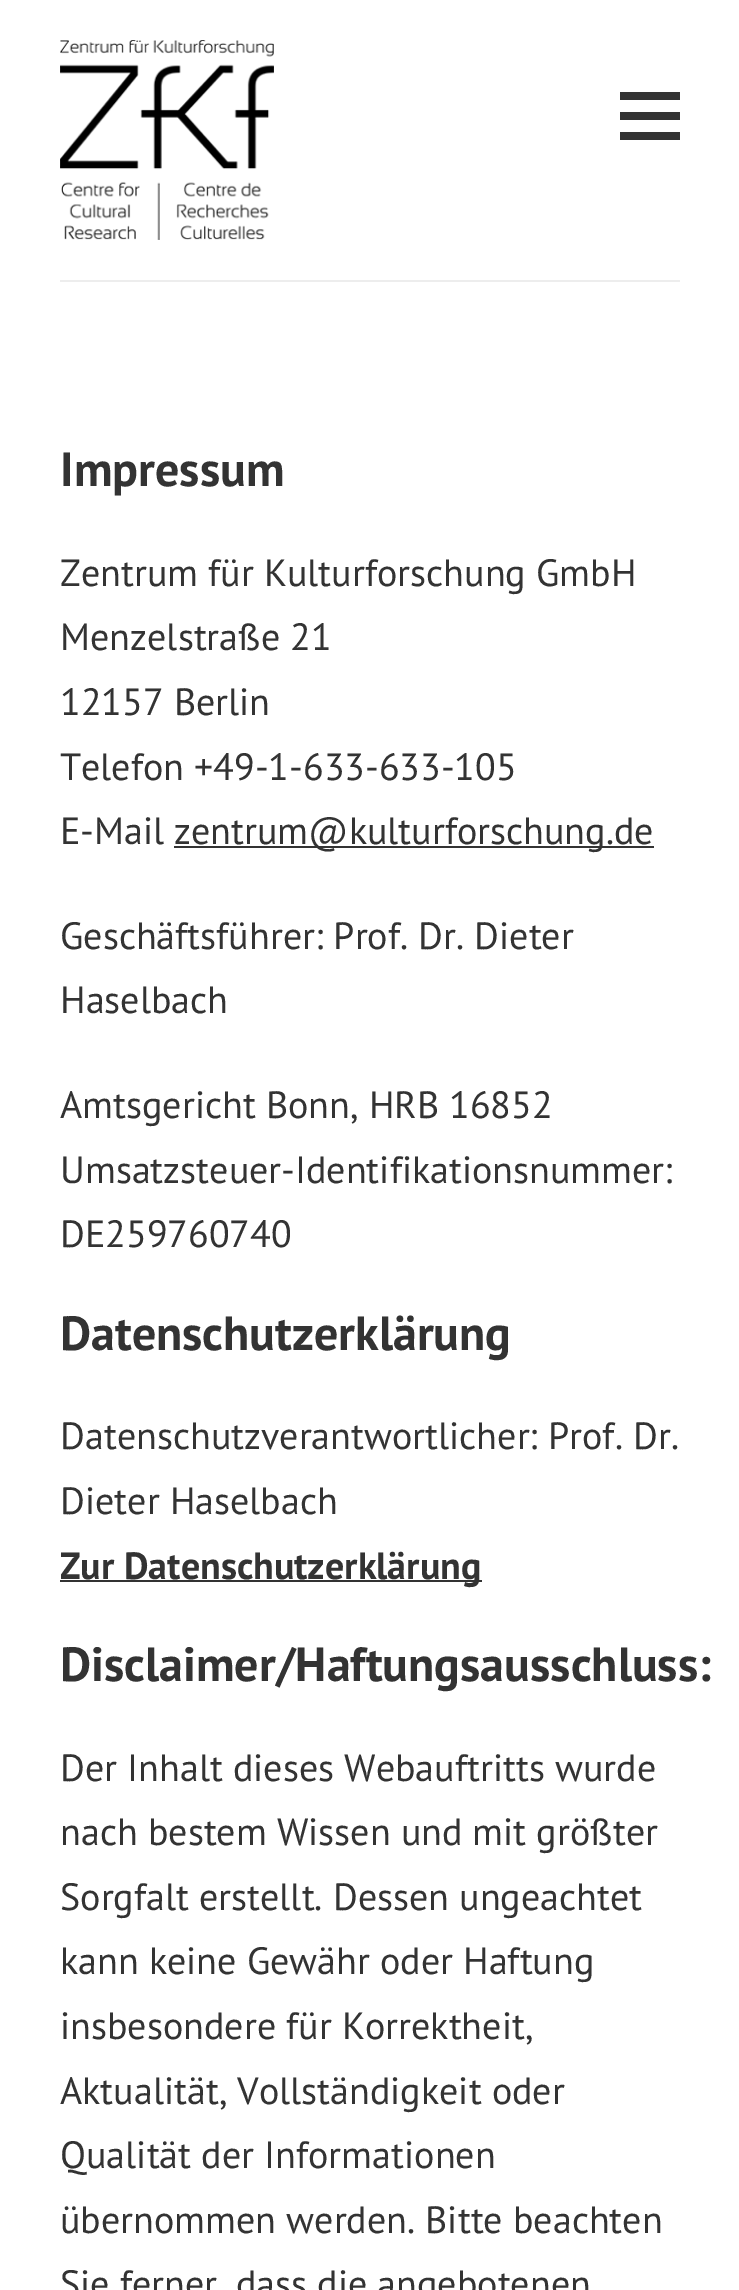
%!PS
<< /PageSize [739 2290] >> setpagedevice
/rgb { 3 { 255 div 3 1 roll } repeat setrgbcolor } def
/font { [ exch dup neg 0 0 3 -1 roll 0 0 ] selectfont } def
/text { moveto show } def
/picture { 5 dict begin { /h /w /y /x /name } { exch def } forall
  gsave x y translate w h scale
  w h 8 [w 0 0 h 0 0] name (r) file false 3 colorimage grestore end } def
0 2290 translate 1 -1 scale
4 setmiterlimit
255 255 255 rgb
0 0 739 2290 rectfill
(img_01.rgb) 60 40 214 200 picture
51 51 51 rgb
620 92 60 8 rectfill
620 112 60 8 rectfill
620 132 60 8 rectfill
237 237 237 rgb
60 280 620 2 rectfill
51 51 51 rgb
174 846 480 2 rectfill
60 1580 422 2 rectfill
/PTSans-Bold 48 font
(Impressum) 60 486 text
/PTSans-Regular 38 font
(Zentrum für Kulturforschung GmbH) 60 586 text
(Menzelstraße 21) 60 650 text
(12157 Berlin) 60 715 text
(Telefon +49-1-633-633-105) 60 780 text
(E-Mail) 60 844 text
(zentrum@kulturforschung.de) 174 844 text
(Geschäftsführer: Prof. Dr. Dieter) 60 949 text
(Haselbach) 60 1013 text
(Amtsgericht Bonn, HRB 16852) 60 1118 text
(Umsatzsteuer-Identifikationsnummer:) 60 1183 text
(DE259760740) 60 1247 text
/PTSans-Bold 48 font
(Datenschutzerklärung) 60 1350 text
/PTSans-Regular 38 font
(Datenschutzverantwortlicher: Prof. Dr.) 60 1449 text
(Dieter Haselbach) 60 1514 text
/PTSans-Bold 38 font
(Zur Datenschutzerklärung) 60 1579 text
/PTSans-Bold 48 font
(Disclaimer/Haftungsausschluss:) 60 1681 text
/PTSans-Regular 38 font
(Der Inhalt dieses Webauftritts wurde) 60 1781 text
(nach bestem Wissen und mit größter) 60 1845 text
(Sorgfalt erstellt. Dessen ungeachtet) 60 1910 text
(kann keine Gewähr oder Haftung) 60 1974 text
(insbesondere für Korrektheit,) 60 2039 text
(Aktualität, Vollständigkeit oder) 60 2104 text
(Qualität der Informationen) 60 2168 text
(übernommen werden. Bitte beachten) 60 2233 text
(Sie ferner, dass die angebotenen) 60 2297 text
showpage
